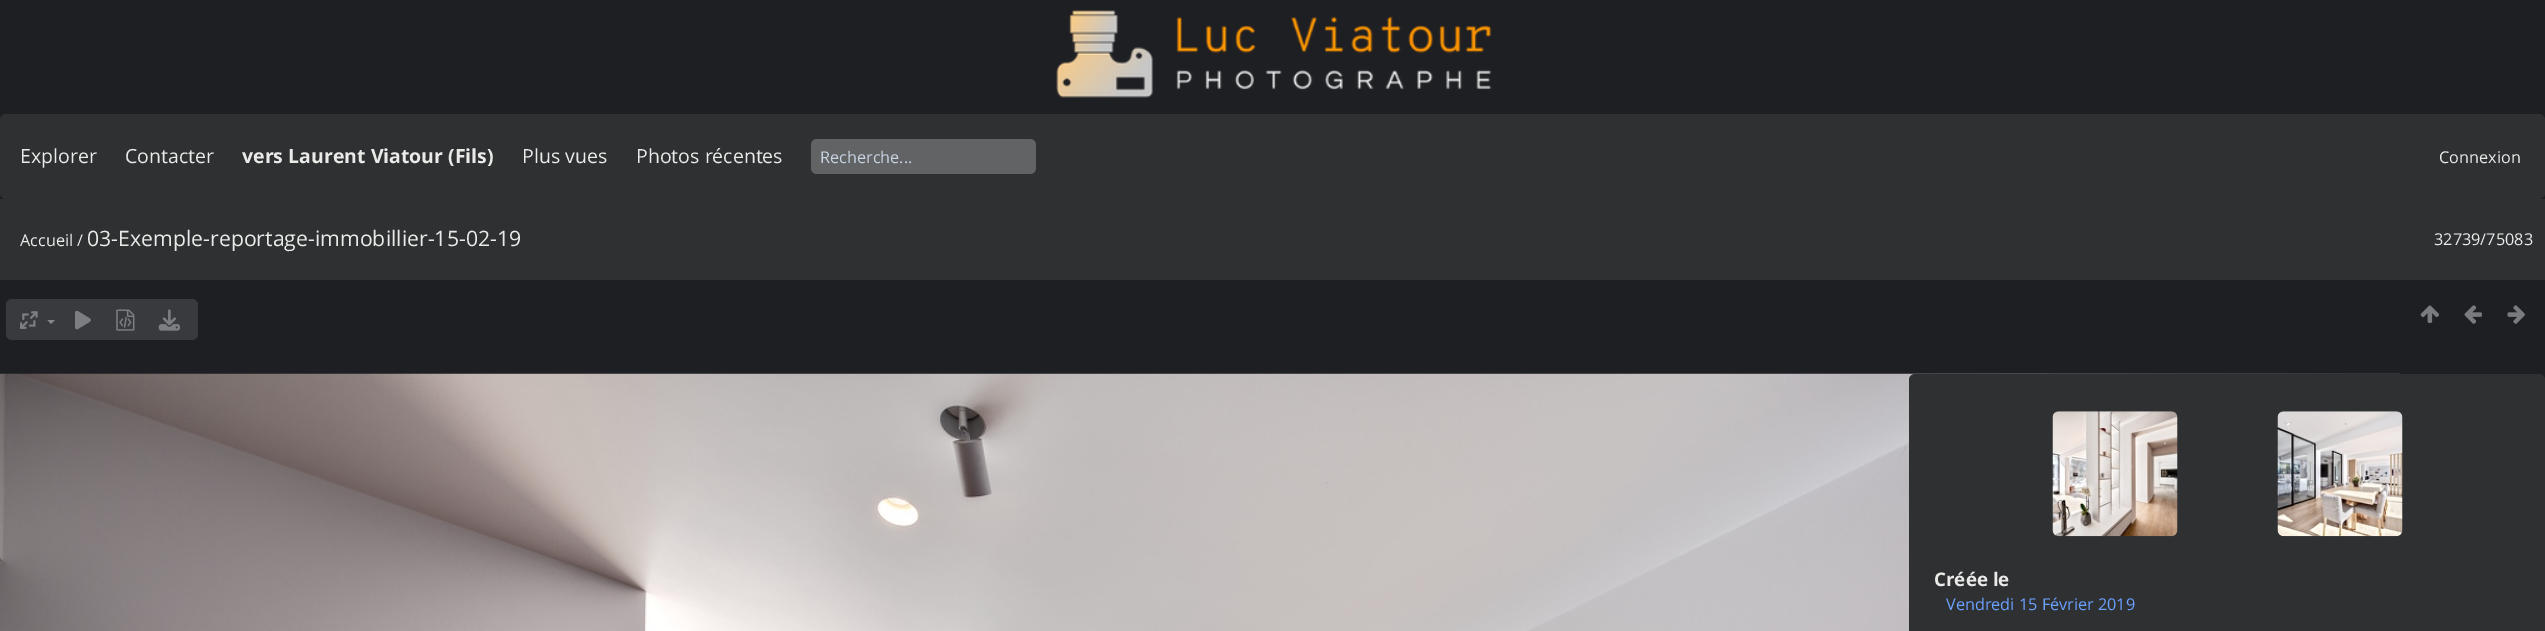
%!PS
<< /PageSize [2545 631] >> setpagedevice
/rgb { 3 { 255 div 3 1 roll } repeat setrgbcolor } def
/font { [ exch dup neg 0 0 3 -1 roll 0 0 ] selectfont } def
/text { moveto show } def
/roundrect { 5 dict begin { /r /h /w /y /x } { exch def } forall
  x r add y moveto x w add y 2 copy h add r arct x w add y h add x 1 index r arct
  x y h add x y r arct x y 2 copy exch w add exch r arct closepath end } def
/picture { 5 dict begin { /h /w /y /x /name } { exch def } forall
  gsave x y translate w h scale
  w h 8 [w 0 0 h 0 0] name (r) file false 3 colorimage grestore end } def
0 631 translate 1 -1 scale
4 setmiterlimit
30 31 35 rgb
0 0 2545 631 rectfill
(img_01.rgb) 1056 10 436 88 picture
47 48 50 rgb
0 114 2545 85 6 roundrect fill
97 99 100 rgb
811 139 225 35 6 roundrect fill
47 48 50 rgb
0 199 2545 81 rectfill
57 58 61 rgb
6 299 192 41 6 roundrect fill
(img_02.rgb) 20 311 18 18 picture
132 133 136 rgb
47.5 320 moveto 7.5 0 rlineto -4 4 rlineto closepath fill
(img_03.rgb) 75 310 16 20 picture
(img_04.rgb) 116 309 19 22 picture
(img_05.rgb) 158 309 22 22 picture
(img_06.rgb) 2420 305 20 18 picture
(img_07.rgb) 2464 305 18 19 picture
(img_08.rgb) 2507 305 18 19 picture
(img_09.rgb) 0 373 2400 258 picture
47 48 50 rgb
1909 374 636 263 6 roundrect fill
(img_10.rgb) 2052 411 126 126 picture
(img_11.rgb) 2277 411 126 126 picture
/OpenSans-Regular 19.5 font
234 234 233 rgb
(Explorer) 20 163 text
(Contacter) 125 163 text
/OpenSans-Bold 19.5 font
(vers Laurent Viatour \(Fils\)) 242 163 text
/OpenSans-Regular 19.5 font
(Plus vues) 522 163 text
(Photos récentes) 636 163 text
/OpenSans-Regular 16.25 font
199 211 225 rgb
(Recherche...) 820 163 text
234 234 233 rgb
(Connexion) 2439 163 text
(Accueil /) 20 246 text
/OpenSans-Regular 21.25 font
(03-Exemple-reportage-immobillier-15-02-19) 87 246 text
/OpenSans-Regular 16.25 font
(32739/75083) 2434 245 text
/OpenSans-Bold 18.75 font
(Créée le) 1934 586 text
/OpenSans-Regular 16.25 font
107 161 255 rgb
(Vendredi 15 Février 2019) 1946 610 text
showpage
